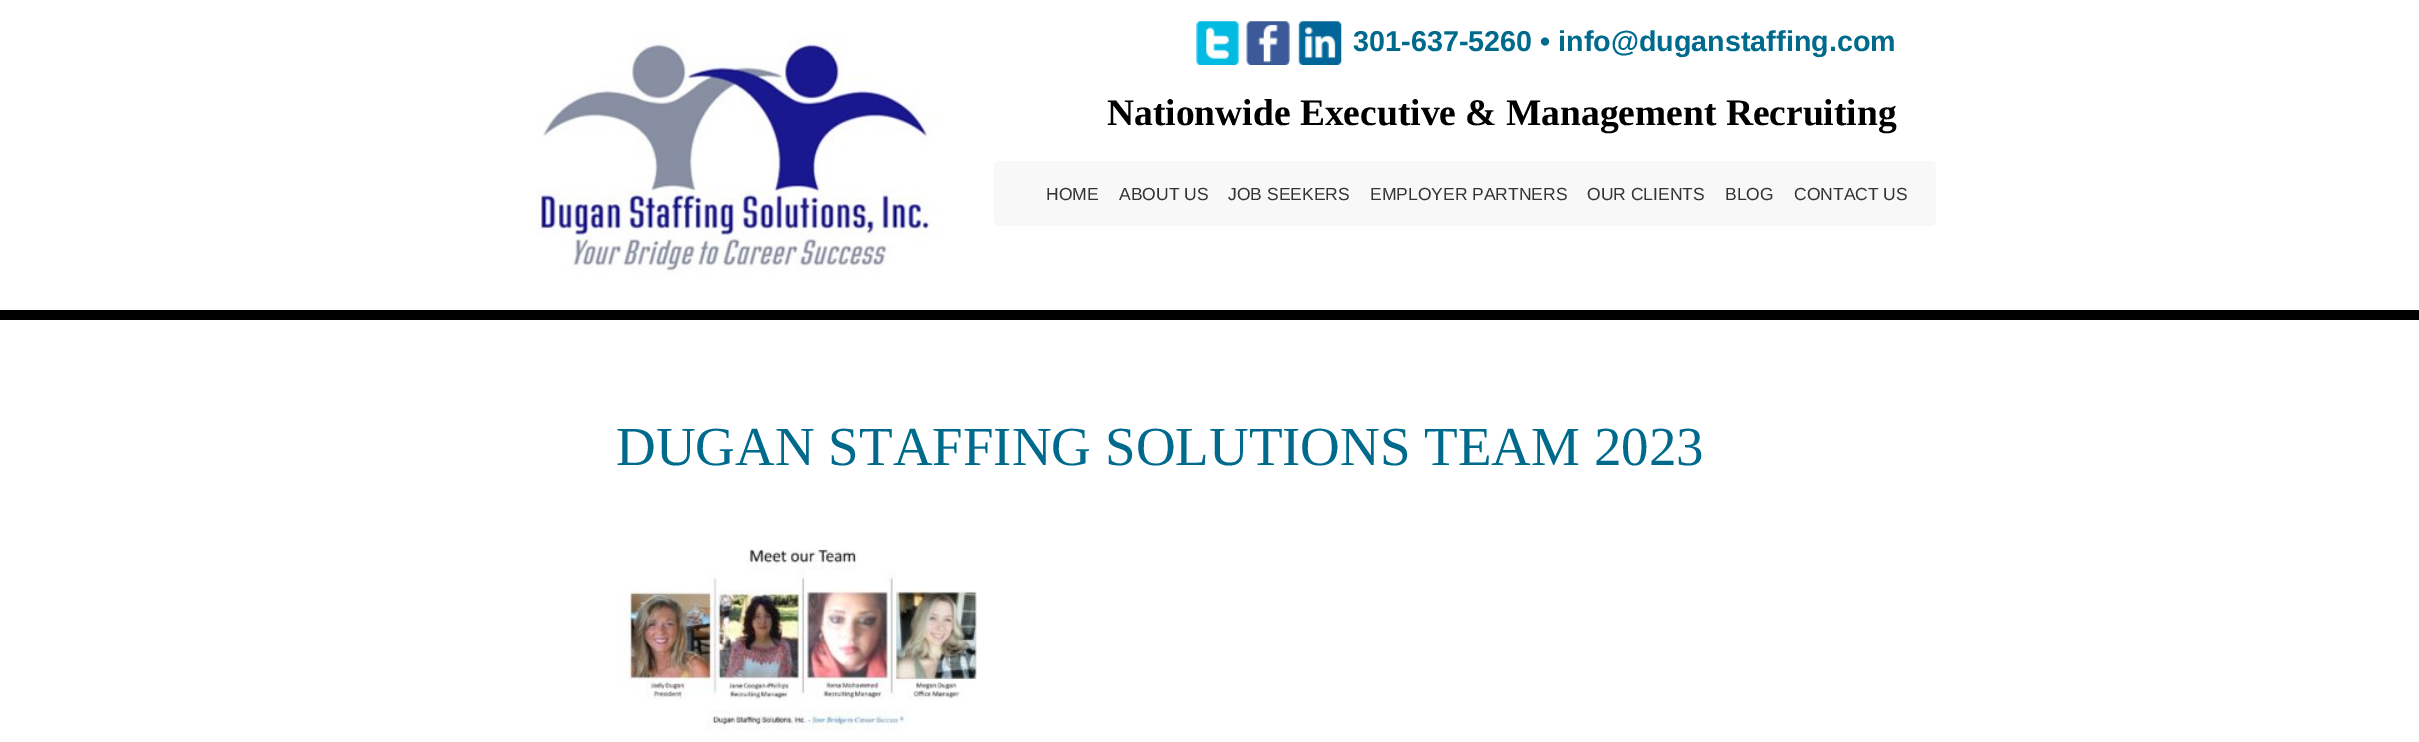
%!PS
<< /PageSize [2419 742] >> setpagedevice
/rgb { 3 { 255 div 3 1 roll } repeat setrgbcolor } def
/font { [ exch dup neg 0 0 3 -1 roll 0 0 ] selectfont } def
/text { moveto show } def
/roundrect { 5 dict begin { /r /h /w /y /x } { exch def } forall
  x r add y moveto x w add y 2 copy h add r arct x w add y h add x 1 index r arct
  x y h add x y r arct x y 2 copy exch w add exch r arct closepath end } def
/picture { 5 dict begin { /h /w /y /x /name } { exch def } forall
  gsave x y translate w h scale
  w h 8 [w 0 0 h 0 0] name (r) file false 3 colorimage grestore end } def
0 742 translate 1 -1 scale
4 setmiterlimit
255 255 255 rgb
0 0 2419 742 rectfill
0 0 0 rgb
0 310 2419 10 rectfill
(img_01.rgb) 535 37 404 237 picture
(img_02.rgb) 1196 21 43 44 picture
(img_03.rgb) 1246 21 44 44 picture
(img_04.rgb) 1298 21 44 44 picture
248 248 248 rgb
994 161 942 65 5 roundrect fill
(img_05.rgb) 616 549 361 181 picture
/LiberationSans-Bold 28.75 font
0 106 141 rgb
(301-637-5260) 1353 51 text
(•) 1540 51 text
(info@duganstaffing.com) 1558 51 text
/LiberationSerif-Bold 37.5 font
0 0 0 rgb
(Nationwide Executive & Management Recruiting) 1107 125 text
/LiberationSans-Regular 17.5 font
51 51 51 rgb
(HOME) 1046 200 text
(ABOUT US) 1119 200 text
(JOB SEEKERS) 1228 200 text
(EMPLOYER PARTNERS) 1370 200 text
(OUR CLIENTS) 1587 200 text
(BLOG) 1725 200 text
(CONTACT US) 1794 200 text
/LiberationSerif-Regular 55 font
0 106 141 rgb
(DUGAN STAFFING SOLUTIONS TEAM 2023) 616 465 text
showpage
